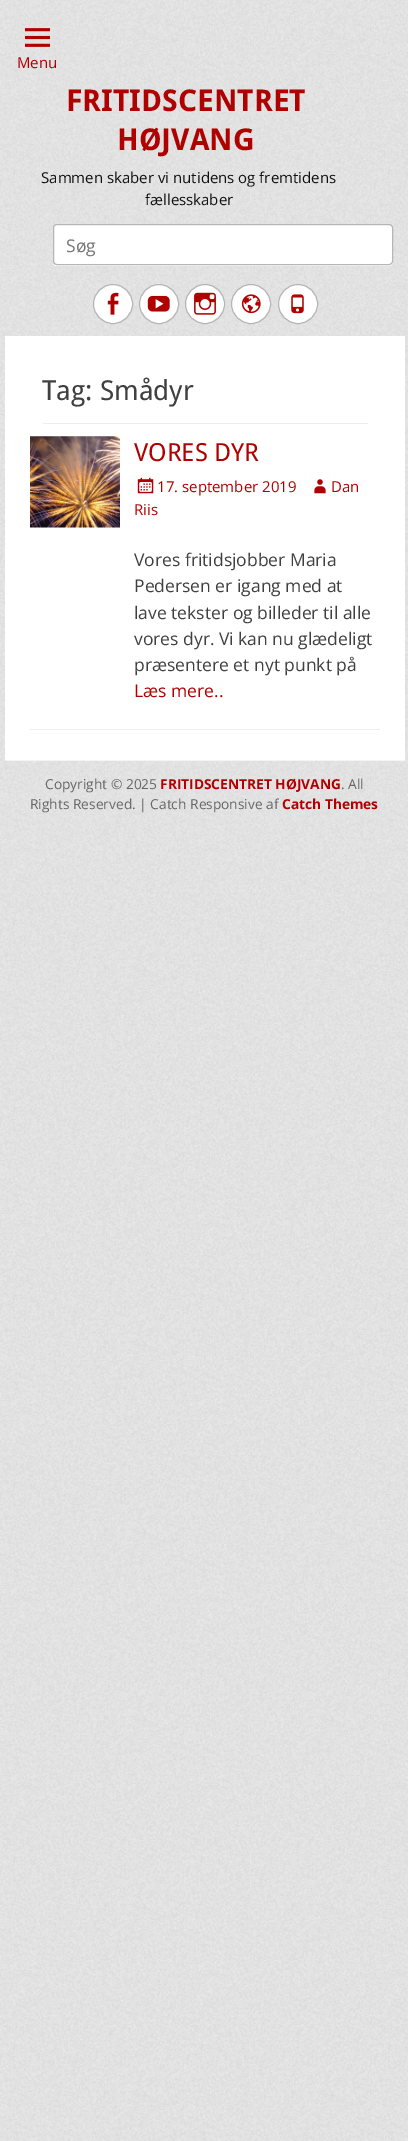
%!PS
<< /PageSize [408 2141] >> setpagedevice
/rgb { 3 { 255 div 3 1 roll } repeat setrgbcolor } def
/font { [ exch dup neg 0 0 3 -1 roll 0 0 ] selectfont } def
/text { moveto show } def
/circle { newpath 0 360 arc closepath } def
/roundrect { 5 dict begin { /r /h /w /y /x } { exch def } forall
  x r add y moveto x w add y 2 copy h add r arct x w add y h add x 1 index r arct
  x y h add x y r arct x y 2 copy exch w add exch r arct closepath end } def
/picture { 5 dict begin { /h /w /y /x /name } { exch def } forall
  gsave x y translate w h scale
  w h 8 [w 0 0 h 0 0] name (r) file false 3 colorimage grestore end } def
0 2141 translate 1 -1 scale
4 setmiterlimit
255 255 255 rgb
0 0 408 2141 rectfill
(img_01.rgb) 0 0 408 2141 picture
(img_02.rgb) 25 28 25 19 picture
53 264 moveto 1 1 2 2 4 2 rcurveto 332 0 rlineto 2 0 4 -2 4 -4 rcurveto 0 -33 rlineto -1 -2 rlineto 0 34 rlineto 0 2 -1 4 -3 4 rcurveto -333 0 rlineto -1 0 -2 -1 -3 -1 rcurveto closepath fill
53.5 224.5 339 40 3.5 roundrect gsave fill grestore
182 182 182 rgb
stroke
255 255 255 rgb
113 304 19.5 circle gsave fill grestore
182 182 182 rgb
stroke
(img_03.rgb) 107 292 12 23 picture
255 255 255 rgb
159 304 19.5 circle gsave fill grestore
182 182 182 rgb
stroke
(img_04.rgb) 147 295 23 17 picture
255 255 255 rgb
205 304 19.5 circle gsave fill grestore
182 182 182 rgb
stroke
(img_05.rgb) 194 292 22 23 picture
255 255 255 rgb
251 304 19.5 circle gsave fill grestore
182 182 182 rgb
stroke
(img_06.rgb) 241 294 20 20 picture
255 255 255 rgb
298 304 19.5 circle gsave fill grestore
182 182 182 rgb
stroke
(img_07.rgb) 291 294 13 20 picture
255 255 255 rgb
5 336 400 424 rectfill
238 238 238 rgb
43 423 325 1 rectfill
30 729 350 1 rectfill
(img_08.rgb) 30 436 90 92 picture
(img_09.rgb) 137 477 17 17 picture
(img_10.rgb) 314 479 12 15 picture
244 244 244 rgb
5 760 400 1 rectfill
/OpenSans-Regular 15 font
176 1 1 rgb
(Menu) 17 68 text
/DroidSans-Bold 30 font
(FRITIDSCENTRET) 66 111 text
(HØJVANG) 117 150 text
/OpenSans-Regular 15 font
17 17 17 rgb
(Sammen skaber vi nutidens og fremtidens) 41 183 text
(fællesskaber) 145 205 text
/OpenSans-Regular 17.5 font
117 117 117 rgb
(Søg) 66 252 text
/DroidSans-Regular 27.5 font
64 64 64 rgb
(Tag: Smådyr) 42 400 text
/DroidSans-Regular 25 font
176 1 1 rgb
(VORES DYR) 134 461 text
/OpenSans-Regular 15 font
(17. september 2019) 157 492 text
(Dan) 331 492 text
(Riis) 134 515 text
/OpenSans-Regular 17.5 font
64 64 64 rgb
(Vores fritidsjobber Maria) 134 566 text
(Pedersen er igang med at) 134 592 text
(lave tekster og billeder til alle) 134 619 text
(vores dyr. Vi kan nu glædeligt) 134 645 text
(præsentere et nyt punkt på) 134 671 text
176 1 1 rgb
(Læs mere..) 134 697 text
/OpenSans-Regular 13.75 font
102 102 102 rgb
(Copyright © 2025) 45 789 text
/OpenSans-Bold 13.75 font
176 1 1 rgb
(FRITIDSCENTRET HØJVANG) 160 789 text
/OpenSans-Regular 13.75 font
102 102 102 rgb
(. All) 341 789 text
(Rights Reserved. | Catch Responsive af) 30 809 text
/OpenSans-Bold 13.75 font
176 1 1 rgb
(Catch Themes) 282 809 text
showpage
